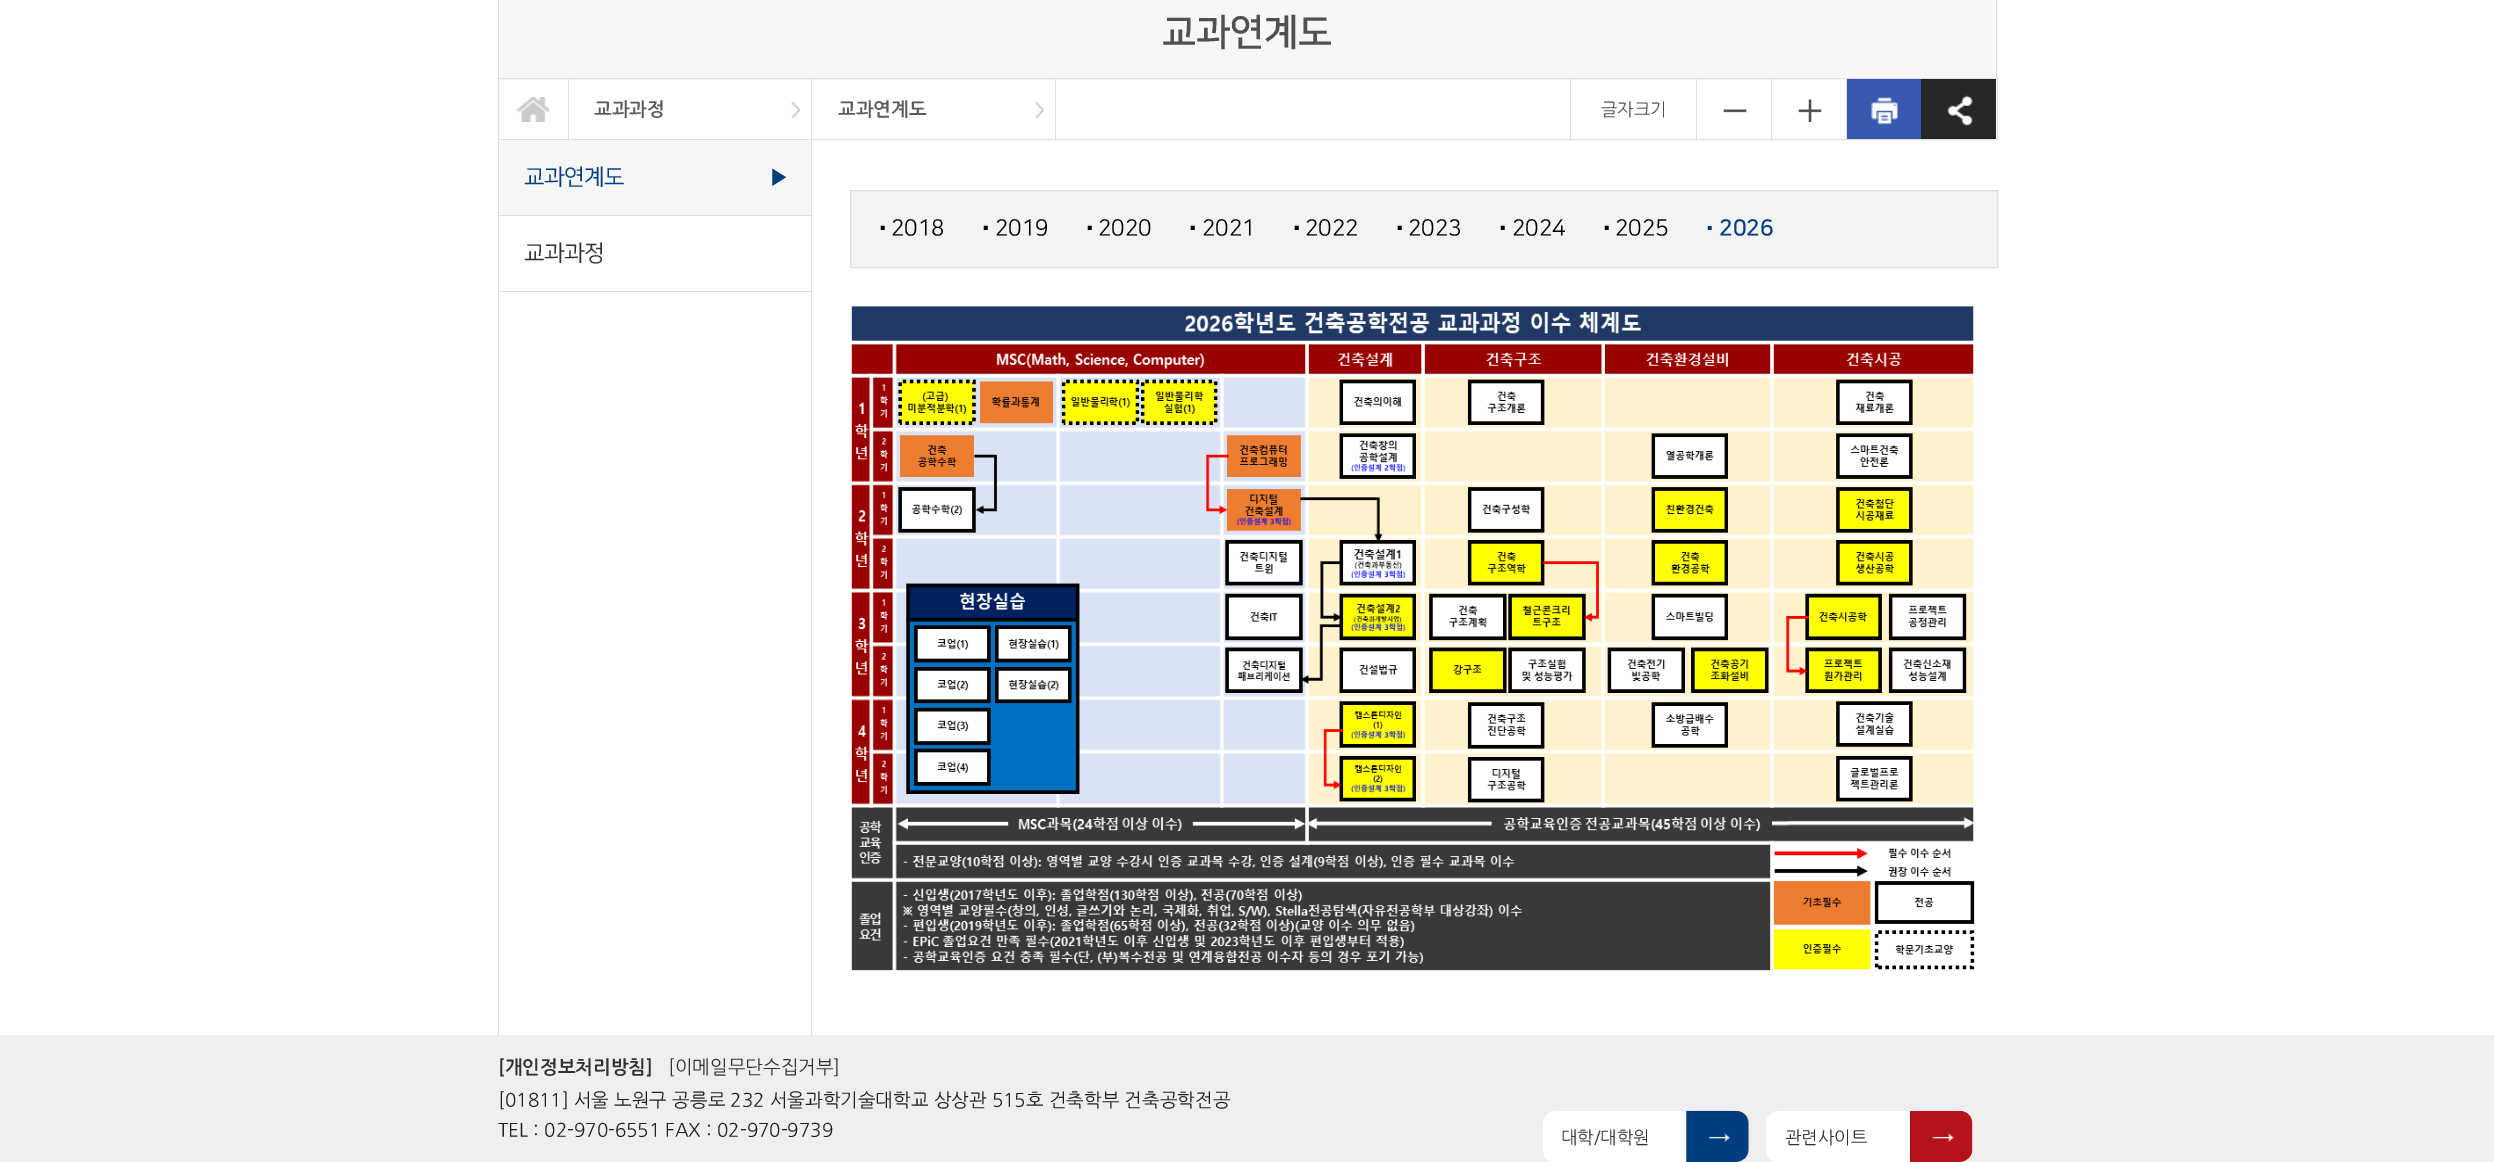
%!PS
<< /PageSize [2494 1162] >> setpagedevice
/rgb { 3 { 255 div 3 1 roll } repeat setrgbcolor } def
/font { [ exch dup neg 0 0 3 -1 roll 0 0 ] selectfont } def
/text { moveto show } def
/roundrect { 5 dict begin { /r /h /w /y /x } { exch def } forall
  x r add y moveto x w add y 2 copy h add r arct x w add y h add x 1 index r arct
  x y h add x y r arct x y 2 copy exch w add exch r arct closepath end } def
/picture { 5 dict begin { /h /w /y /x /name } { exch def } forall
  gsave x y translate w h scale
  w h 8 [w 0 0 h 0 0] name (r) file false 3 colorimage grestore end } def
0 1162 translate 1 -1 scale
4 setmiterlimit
255 255 255 rgb
0 0 2494 1162 rectfill
247 247 247 rgb
499 0 1499 78 rectfill
221 221 221 rgb
1996 0 1 78 rectfill
498 0 1 78 rectfill
223 223 223 rgb
498.5 78.5 1499 61 rectstroke
568 79 1 60 rectfill
(img_01.rgb) 516 97 34 25 picture
(img_02.rgb) 791 102 9 17 picture
811 79 1 60 rectfill
(img_03.rgb) 1035 102 9 17 picture
1055 79 1 60 rectfill
1570 79 1 60 rectfill
1696 79 1 60 rectfill
(img_04.rgb) 1723 109 24 4 picture
1771 79 1 60 rectfill
(img_05.rgb) 1798 99 24 23 picture
55 89 176 rgb
1847 79 74 60 rectfill
223 223 223 rgb
1846 79 1 60 rectfill
(img_06.rgb) 1871 97 27 28 picture
38 38 38 rgb
1921 79 75 60 rectfill
(img_07.rgb) 1947 95 26 31 picture
221 221 221 rgb
811 140 1 895 rectfill
498 140 1 895 rectfill
499 215 312 1 rectfill
246 246 246 rgb
499 140 312 75 rectfill
221 221 221 rgb
499 291 312 1 rectfill
243 243 243 rgb
850.5 190.5 moveto 1147 0 rlineto 0 77 rlineto -1147 0 rlineto closepath gsave fill grestore
221 221 221 rgb
stroke
(img_08.rgb) 851 306 1124 665 picture
239 239 239 rgb
0 1035 2494 127 rectfill
255 255 255 rgb
1543 1111 206 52 13 roundrect fill
(img_09.rgb) 1686 1110 63 52 picture
1766 1111 207 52 13 roundrect fill
(img_10.rgb) 1910 1110 63 52 picture
/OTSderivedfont-Bold 37.5 font
80 80 80 rgb
(교과연계도) 1162 44 text
/NanumGothic-Bold 18.75 font
92 92 92 rgb
(교과과정) 594 115 text
(교과연계도) 838 115 text
/NanumGothic-Regular 17.5 font
80 80 80 rgb
(글자크기) 1601 115 text
/OTSderivedfont-Regular 22.5 font
0 62 126 rgb
524 184 moveto -0.5 0 (교과연계도) ashow
/OTSderivedfont-Bold 22.5 font
769 184 moveto -0.5 0 (▶) ashow
/OTSderivedfont-Regular 22.5 font
49 49 49 rgb
524 260 moveto -0.5 0 (교과과정) ashow
/OTSderivedfont-Regular 6 font
0 0 0 rgb
(■) 880 230 text
/OTSderivedfont-Regular 22.5 font
(2018) 891 235 text
/OTSderivedfont-Regular 6 font
(■) 983 230 text
/OTSderivedfont-Regular 22.5 font
(2019) 995 235 text
/OTSderivedfont-Regular 6 font
(■) 1087 230 text
/OTSderivedfont-Regular 22.5 font
(2020) 1098 235 text
/OTSderivedfont-Regular 6 font
(■) 1190 230 text
/OTSderivedfont-Regular 22.5 font
(2021) 1202 235 text
/OTSderivedfont-Regular 6 font
(■) 1294 230 text
/OTSderivedfont-Regular 22.5 font
(2022) 1305 235 text
/OTSderivedfont-Regular 6 font
(■) 1397 230 text
/OTSderivedfont-Regular 22.5 font
(2023) 1408 235 text
/OTSderivedfont-Regular 6 font
(■) 1500 230 text
/OTSderivedfont-Regular 22.5 font
(2024) 1512 235 text
/OTSderivedfont-Regular 6 font
(■) 1604 230 text
/OTSderivedfont-Regular 22.5 font
(2025) 1615 235 text
/OTSderivedfont-Bold 6 font
0 62 126 rgb
(■) 1707 230 text
/OTSderivedfont-Bold 22.5 font
(2026) 1719 235 text
/NanumGothic-Bold 18.75 font
49 49 49 rgb
([개인정보처리방침]) 498 1073 text
/NanumGothic-Regular 18.75 font
([이메일무단수집거부]) 668 1073 text
30 30 30 rgb
([01811] 서울 노원구 공릉로 232 서울과학기술대학교 상상관 515호 건축학부 건축공학전공) 498 1106 text
(TEL : 02-970-6551 FAX : 02-970-9739) 498 1136 text
/NanumGothic-Regular 17.5 font
49 49 49 rgb
(대학/대학원) 1561 1143 text
(관련사이트) 1785 1143 text
showpage
